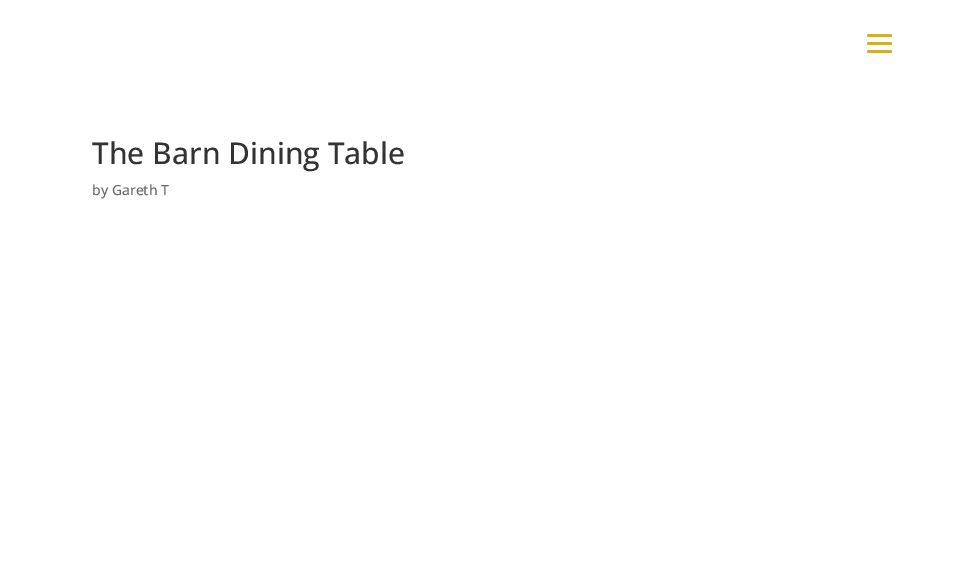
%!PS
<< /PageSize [965 561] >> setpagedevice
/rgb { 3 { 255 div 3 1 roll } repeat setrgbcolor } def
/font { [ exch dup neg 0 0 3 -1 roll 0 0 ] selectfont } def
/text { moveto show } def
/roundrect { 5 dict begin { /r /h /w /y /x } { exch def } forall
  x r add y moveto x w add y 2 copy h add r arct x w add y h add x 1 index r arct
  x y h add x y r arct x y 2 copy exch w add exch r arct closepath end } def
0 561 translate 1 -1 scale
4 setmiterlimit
255 255 255 rgb
0 0 965 561 rectfill
209 174 51 rgb
867 42 25 3 1.5 roundrect fill
867 34 25 3 1.5 roundrect fill
867 50 25 3 1.5 roundrect fill
/OpenSans-Medium 30 font
51 51 51 rgb
(The Barn Dining Table) 92 164 text
/OpenSans-Medium 14 font
102 102 102 rgb
(by Gareth T) 92 195 text
showpage
